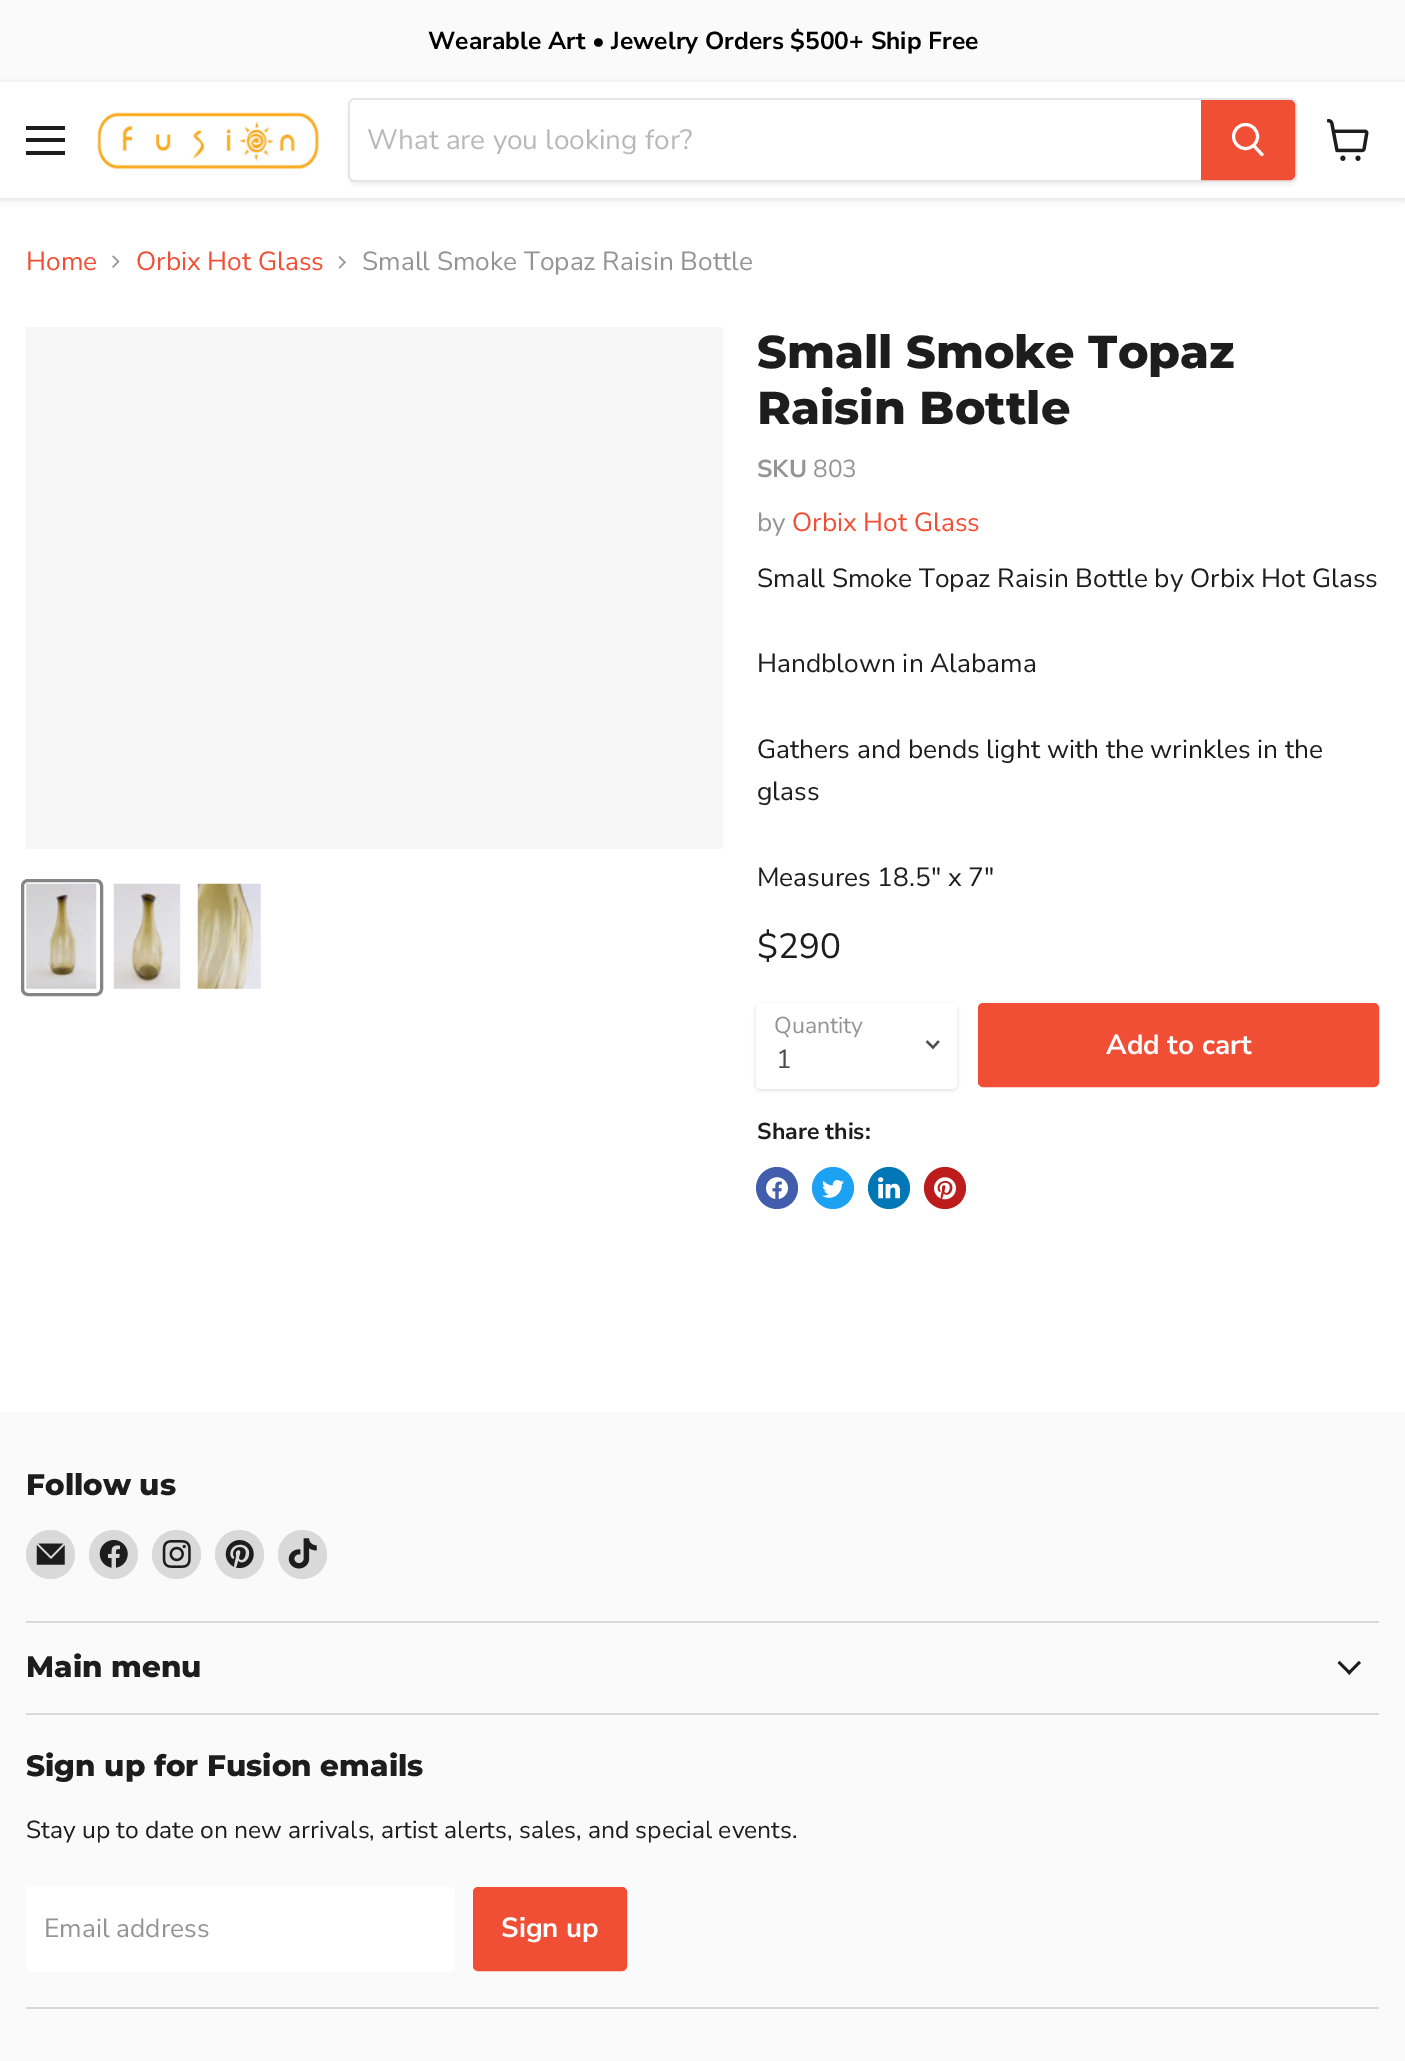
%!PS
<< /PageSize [1405 2061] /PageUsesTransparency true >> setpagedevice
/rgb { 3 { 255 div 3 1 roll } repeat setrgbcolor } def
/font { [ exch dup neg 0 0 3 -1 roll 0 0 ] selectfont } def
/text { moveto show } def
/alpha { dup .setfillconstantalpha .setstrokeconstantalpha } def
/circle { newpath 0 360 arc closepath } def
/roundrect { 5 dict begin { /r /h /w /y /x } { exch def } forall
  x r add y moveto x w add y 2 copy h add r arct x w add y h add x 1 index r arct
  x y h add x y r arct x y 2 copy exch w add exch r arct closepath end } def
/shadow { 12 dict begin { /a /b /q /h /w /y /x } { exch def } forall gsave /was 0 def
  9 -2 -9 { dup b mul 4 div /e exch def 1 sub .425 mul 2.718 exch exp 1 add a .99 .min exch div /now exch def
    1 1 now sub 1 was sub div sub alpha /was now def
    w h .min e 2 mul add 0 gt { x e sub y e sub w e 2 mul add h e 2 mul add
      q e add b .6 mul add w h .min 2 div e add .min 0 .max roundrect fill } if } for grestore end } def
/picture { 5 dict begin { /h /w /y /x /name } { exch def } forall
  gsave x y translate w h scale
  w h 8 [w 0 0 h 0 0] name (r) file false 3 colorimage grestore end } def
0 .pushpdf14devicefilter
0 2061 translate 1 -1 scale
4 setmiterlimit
255 255 255 rgb
0 0 1405 2061 rectfill
250 250 250 rgb
0 0 1405 82 rectfill
128 128 128 rgb
0 84 1405 116 0 3.5 0.25 shadow
255 255 255 rgb
0 82 1405 116 rectfill
29 29 29 rgb
26 126 39 4 rectfill
26 138 39 4 rectfill
26 151 39 4 rectfill
(img_01.rgb) 97 112 222 58 picture
gsave
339 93 moveto 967 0 rlineto 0 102 rlineto -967 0 rlineto closepath 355 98 moveto 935 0 rlineto 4 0 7 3 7 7 rcurveto 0 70 rlineto 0 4 -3 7 -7 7 rcurveto -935 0 rlineto -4 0 -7 -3 -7 -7 rcurveto 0 -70 rlineto 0 -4 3 -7 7 -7 rcurveto closepath eoclip newpath
128 128 128 rgb
348 102 949 84 7 2.5 0.11 shadow
grestore
0.2 alpha
128 128 128 rgb
2 setlinewidth
349 99 947 82 6 roundrect stroke
1 alpha
255 255 255 rgb
355 100 moveto 846 0 rlineto 0 80 rlineto -846 0 rlineto -3 0 -5 -2 -5 -5 rcurveto 0 -70 rlineto 0 -3 2 -5 5 -5 rcurveto closepath fill
240 79 54 rgb
1202 101 moveto 88 0 rlineto 2 0 4 2 4 4 rcurveto 0 70 rlineto 0 2 -2 4 -4 4 rcurveto -88 0 rlineto closepath gsave fill grestore
stroke
255 255 255 rgb
3 setlinewidth
1 setlinecap
1262 154.5 moveto -8 -8.5 rlineto stroke
0 setlinecap
1245.5 136.5 12 circle stroke
(img_02.rgb) 1327 119 42 42 picture
(img_03.rgb) 112 255 8 13 picture
(img_04.rgb) 338 256 8 13 picture
246 246 246 rgb
26 327 697 522 rectfill
133 133 133 rgb
22.5 880.5 79 114 5.5 roundrect stroke
(img_05.rgb) 26 883 71 106 picture
(img_06.rgb) 113 883 68 106 picture
(img_07.rgb) 197 883 64 106 picture
0 0 0 rgb
756 1005 201 85 5 2 0.15 shadow
255 255 255 rgb
757 1004 199 84 4 roundrect gsave fill grestore
2 setlinewidth
stroke
77 77 77 rgb
2.2 setlinewidth
2 setlinecap
933 1047.5 moveto 5 -5.5 rlineto 933 1047.5 moveto -5.5 -5.5 rlineto stroke
240 79 54 rgb
979 1004 399 82 4 roundrect gsave fill grestore
2 setlinewidth
0 setlinecap
stroke
66 93 171 rgb
777 1188 21 circle fill
(img_08.rgb) 766 1177 22 22 picture
29 161 242 rgb
833 1188 21 circle fill
(img_09.rgb) 822 1180 22 18 picture
0 119 181 rgb
889 1188 21 circle fill
(img_10.rgb) 878 1177 22 22 picture
189 28 28 rgb
945 1188 21 circle fill
(img_11.rgb) 934 1177 22 23 picture
250 250 250 rgb
0 1412 1405 649 rectfill
217 217 217 rgb
26 1621 1353 2 rectfill
50.5 1554.5 24.5 circle fill
(img_12.rgb) 36 1543 29 22 picture
113.5 1554.5 24.5 circle fill
(img_13.rgb) 99 1540 29 28 picture
176.5 1554.5 24.5 circle fill
(img_14.rgb) 162 1540 29 28 picture
239.5 1554.5 24.5 circle fill
(img_15.rgb) 225 1540 29 29 picture
302.5 1554.5 24.5 circle fill
(img_16.rgb) 288 1538 29 31 picture
26 1713 1353 2 rectfill
(img_17.rgb) 1337 1661 24 14 picture
26 2007 1353 2 rectfill
255 255 255 rgb
26 1887 429 85 5 roundrect fill
240 79 54 rgb
474 1888 152 82 4 roundrect gsave fill grestore
stroke
/NunitoSans-Bold 24.6 font
0 0 0 rgb
(Wearable Art • Jewelry Orders $500+ Ship Free) 428 49 text
/NunitoSans-Regular 28 font
184 184 184 rgb
(What are you looking for?) 367 149 text
/NunitoSans-Regular 26.25 font
240 79 54 rgb
(Home) 26 270 text
(Orbix Hot Glass) 136 270 text
148 148 148 rgb
(Small Smoke Topaz Raisin Bottle) 362 270 text
/Montserrat-ExtraBold 46 font
29 29 29 rgb
(Small Smoke Topaz) 757 368 text
(Raisin Bottle) 757 424 text
/NunitoSans-Bold 24.5 font
148 148 148 rgb
(SKU) 757 477 text
/NunitoSans-Regular 24.5 font
(803) 813 477 text
/NunitoSans-Regular 26.25 font
(by) 757 531 text
240 79 54 rgb
(Orbix Hot Glass) 792 531 text
29 29 29 rgb
(Small Smoke Topaz Raisin Bottle by Orbix Hot Glass) 757 587 text
(Handblown in Alabama) 757 672 text
(Gathers and bends light with the wrinkles in the) 757 758 text
(glass) 757 800 text
(Measures 18.5" x 7") 757 886 text
/NunitoSans-Regular 35 font
($290) 757 958 text
/NunitoSans-Regular 23 font
148 148 148 rgb
(Quantity) 774 1033 text
/NunitoSans-Regular 26.25 font
77 77 77 rgb
(1) 776 1068 text
/NunitoSans-Bold 27.75 font
255 255 255 rgb
(Add to cart) 1106 1054 text
/NunitoSans-Bold 23 font
29 29 29 rgb
(Share this:) 757 1139 text
/Montserrat-ExtraBold 29.5 font
(Follow us) 26 1495 text
(Main menu) 26 1677 text
(Sign up for Fusion emails) 26 1776 text
/NunitoSans-Regular 24.6 font
(Stay up to date on new arrivals, artist alerts, sales, and special events.) 26 1838 text
/NunitoSans-Regular 26.25 font
148 148 148 rgb
(Email address) 44 1937 text
/NunitoSans-Bold 27.75 font
255 255 255 rgb
(Sign up) 501 1937 text
.poppdf14devicefilter showpage
